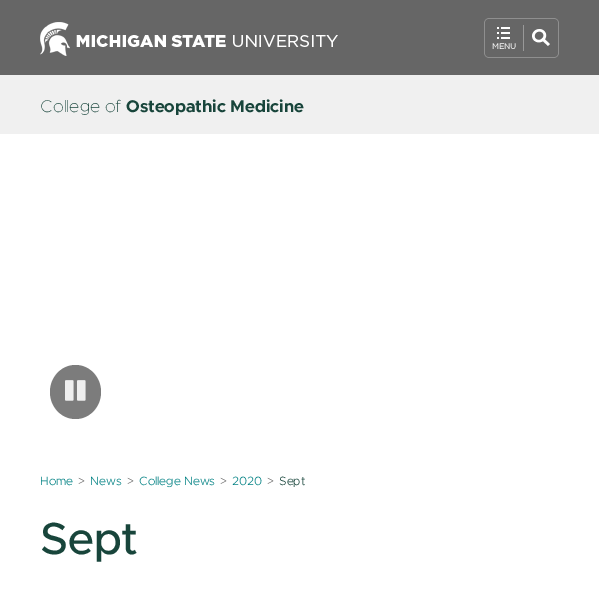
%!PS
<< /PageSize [599 598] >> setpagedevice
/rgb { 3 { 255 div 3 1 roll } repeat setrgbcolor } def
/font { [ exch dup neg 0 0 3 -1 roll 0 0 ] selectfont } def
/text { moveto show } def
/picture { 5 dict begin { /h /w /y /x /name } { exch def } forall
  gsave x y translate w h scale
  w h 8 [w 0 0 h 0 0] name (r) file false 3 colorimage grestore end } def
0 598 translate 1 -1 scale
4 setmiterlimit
255 255 255 rgb
0 0 599 598 rectfill
102 102 102 rgb
0 0 599 75 rectfill
(img_01.rgb) 40 22 298 34 picture
(img_02.rgb) 484 18 75 40 picture
240 240 240 rgb
0 75 599 59 rectfill
124 124 124 rgb
75.5 365 moveto 14 0 25.5 12 25.5 27 rcurveto 0 15 -11.5 27 -25.5 27 rcurveto -14 0 -25.5 -12 -25.5 -27 rcurveto 0 -15 11.5 -27 25.5 -27 rcurveto closepath fill
(img_03.rgb) 65 380 21 21 picture
/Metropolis-Thin 17 font
24 69 59 rgb
(College of) 40 112 text
/Metropolis-Bold 17 font
(Osteopathic Medicine) 126 112 text
/Metropolis-Light 12 font
0 129 131 rgb
(Home) 40 485 text
112 112 112 rgb
(>) 78 485 text
0 129 131 rgb
(News) 90 485 text
112 112 112 rgb
(>) 127 485 text
0 129 131 rgb
(College News) 139 485 text
112 112 112 rgb
(>) 220 485 text
0 129 131 rgb
(2020) 232 485 text
112 112 112 rgb
(>) 267 485 text
24 69 59 rgb
(Sept) 279 485 text
/Metropolis-Medium 45 font
(Sept) 40 554 text
showpage
